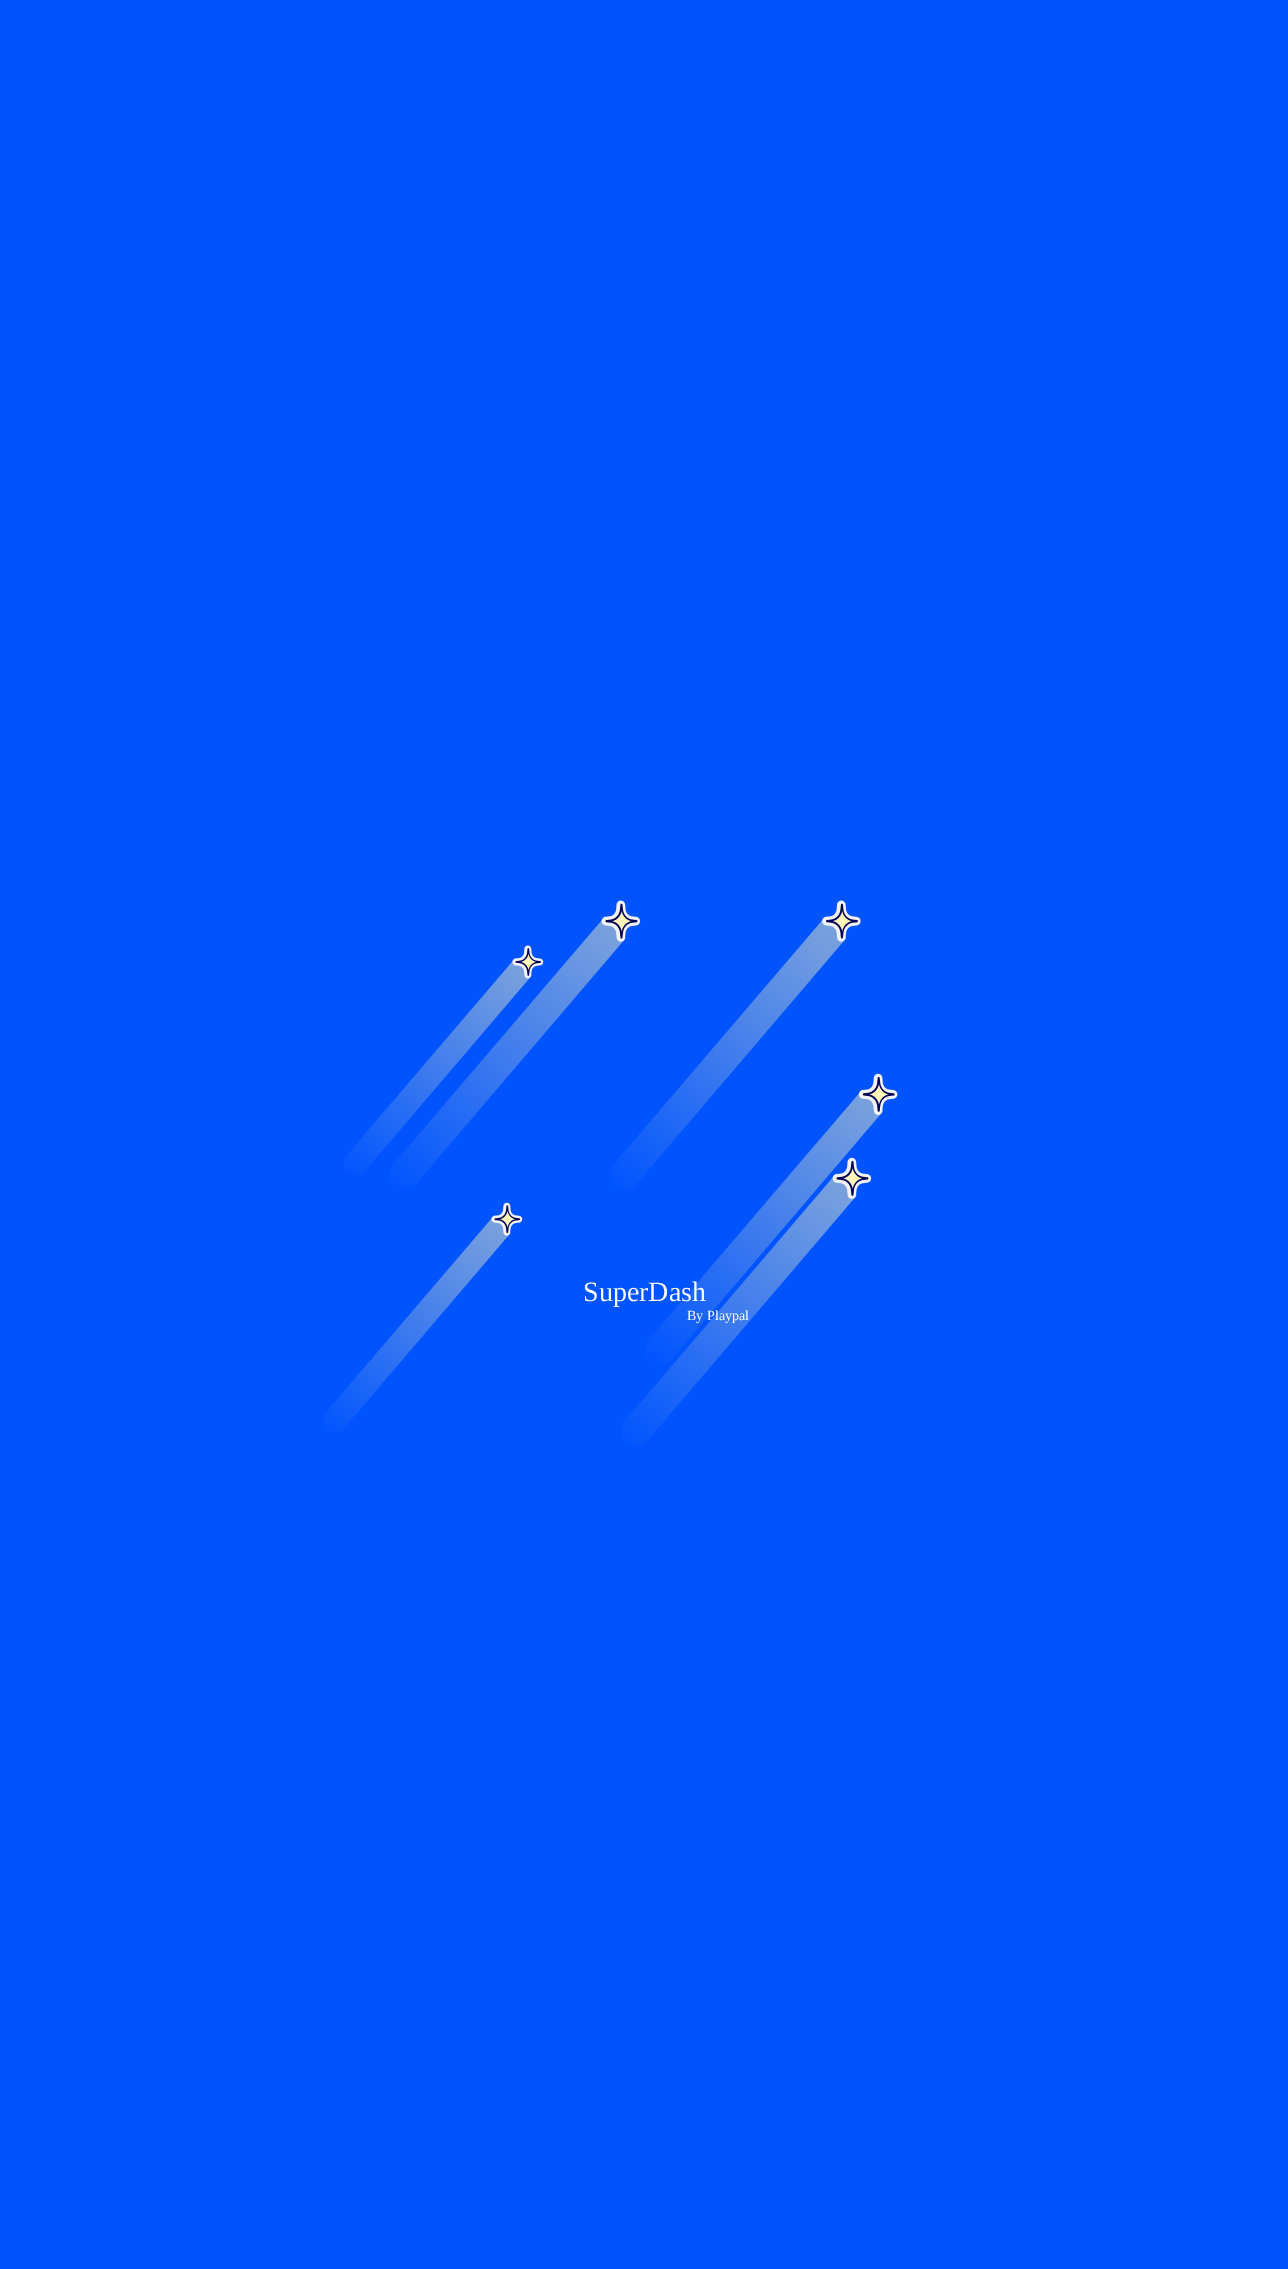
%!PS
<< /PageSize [1288 2269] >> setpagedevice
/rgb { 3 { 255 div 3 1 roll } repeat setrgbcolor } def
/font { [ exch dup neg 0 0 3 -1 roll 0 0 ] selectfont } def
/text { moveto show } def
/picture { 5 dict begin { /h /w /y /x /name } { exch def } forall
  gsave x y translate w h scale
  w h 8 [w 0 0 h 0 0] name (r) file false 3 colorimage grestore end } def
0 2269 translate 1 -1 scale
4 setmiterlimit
0 84 255 rgb
0 0 1288 2269 rectfill
(img_01.rgb) 390 900 251 287 picture
(img_02.rgb) 611 900 250 287 picture
(img_03.rgb) 344 945 200 230 picture
(img_04.rgb) 648 1073 250 288 picture
(img_05.rgb) 323 1202 200 230 picture
(img_06.rgb) 621 1157 251 288 picture
/LiberationSerif-Regular 28 font
255 255 255 rgb
(SuperDash) 583 1301 text
/LiberationSerif-Regular 14 font
(By Playpal) 687 1320 text
showpage
